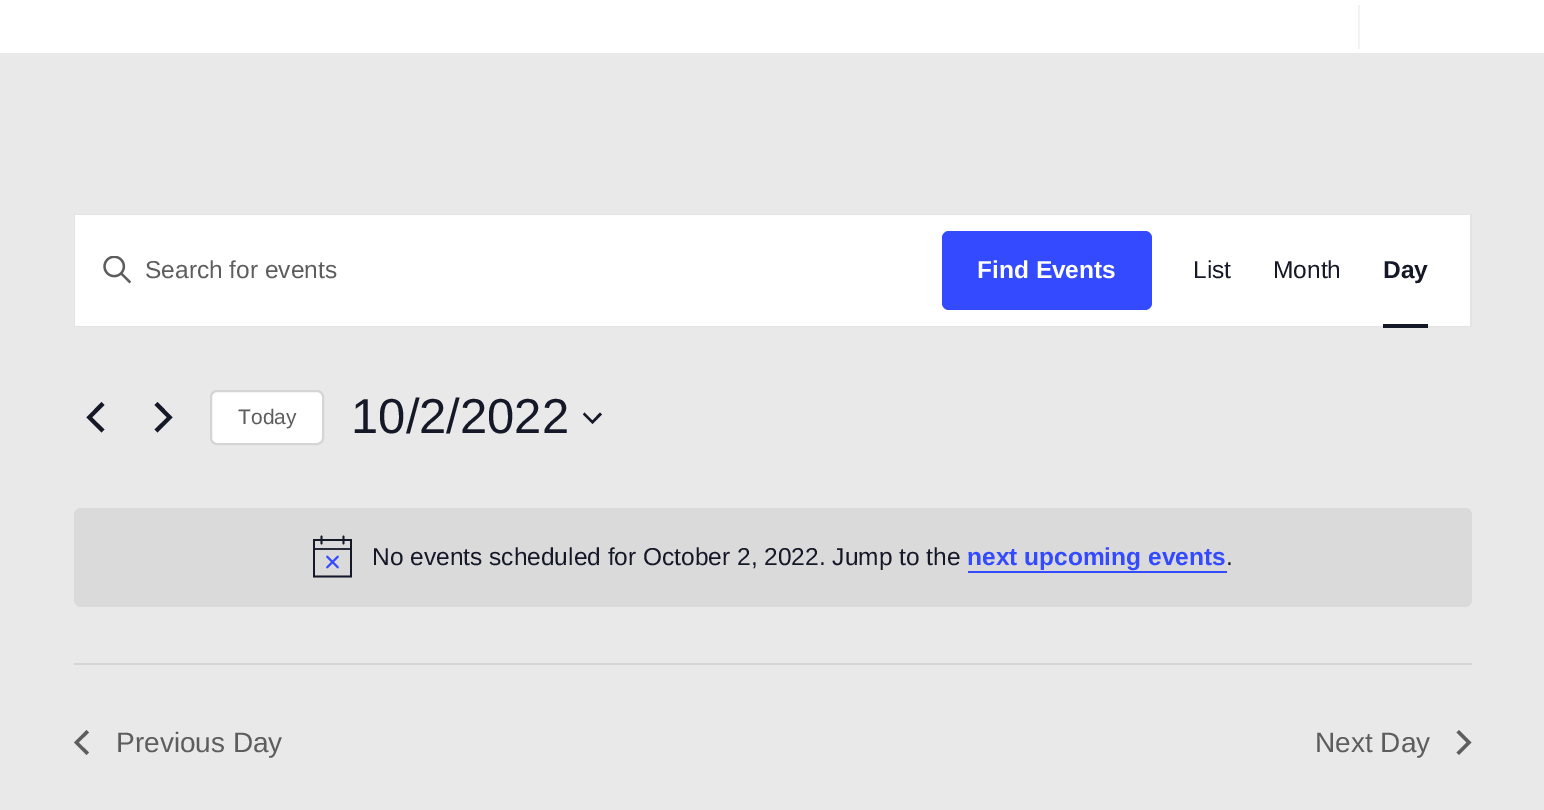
%!PS
<< /PageSize [1544 810] /PageUsesTransparency true >> setpagedevice
/rgb { 3 { 255 div 3 1 roll } repeat setrgbcolor } def
/font { [ exch dup neg 0 0 3 -1 roll 0 0 ] selectfont } def
/text { moveto show } def
/alpha { dup .setfillconstantalpha .setstrokeconstantalpha } def
/roundrect { 5 dict begin { /r /h /w /y /x } { exch def } forall
  x r add y moveto x w add y 2 copy h add r arct x w add y h add x 1 index r arct
  x y h add x y r arct x y 2 copy exch w add exch r arct closepath end } def
/picture { 5 dict begin { /h /w /y /x /name } { exch def } forall
  gsave x y translate w h scale
  w h 8 [w 0 0 h 0 0] name (r) file false 3 colorimage grestore end } def
0 .pushpdf14devicefilter
0 810 translate 1 -1 scale
4 setmiterlimit
233 233 233 rgb
0 0 1544 810 rectfill
255 255 255 rgb
0 0 1544 53 rectfill
243 243 243 rgb
1358 5 2 44 rectfill
228 228 228 rgb
2 setlinewidth
75 215 1396 111 rectstroke
255 255 255 rgb
75 215 1395 111 rectfill
(img_01.rgb) 103 256 28 28 picture
51 74 255 rgb
942 231 210 79 7 roundrect fill
20 24 39 rgb
1383 324 45 4 rectfill
104.5 429.5 moveto -3 3 rlineto -15 -15 rlineto 15 -15.5 rlineto 3 3 rlineto -12.5 12.5 rlineto closepath fill
154.5 405 moveto 3 -3 rlineto 15 15.5 rlineto -15 15 rlineto -3 -3 rlineto 12.5 -12 rlineto closepath fill
255 255 255 rgb
211 391 112 53 6 roundrect gsave fill grestore
213 213 213 rgb
stroke
20 24 39 rgb
584.5 412.5 moveto 8 8 rlineto 7.5 -8 rlineto 2 2 rlineto -9.5 9.5 rlineto -9.5 -9.5 rlineto closepath eofill
218 218 219 rgb
74 508 1398 99 7 roundrect fill
20 24 39 rgb
1.8 setlinewidth
314 540 moveto 37 0 rlineto 0 36.5 rlineto -37 0 rlineto closepath stroke
51 74 255 rgb
1 setlinecap
327 556.5 moveto 11 11 rlineto 338 556.5 moveto -11 11 rlineto stroke
20 24 39 rgb
321.5 536.5 moveto 0 7 rlineto 343.5 536.5 moveto 0 7 rlineto stroke
0.9 alpha
313 548 39 2 rectfill
1 alpha
51 74 255 rgb
968 571 259 2 rectfill
213 213 213 rgb
74 663 1398 2 rectfill
93 93 93 rgb
89 752.5 moveto -2.5 2.5 rlineto -12.5 -12.5 rlineto 12.5 -12.5 rlineto 2.5 2.5 rlineto -10.5 10 rlineto closepath fill
1456.5 732.5 moveto 2.5 -2.5 rlineto 12.5 12.5 rlineto -12.5 12.5 rlineto -2.5 -2.5 rlineto 10 -10 rlineto closepath fill
/LiberationSans-Regular 24.5 font
(Search for events) 145 278 text
/LiberationSans-Bold 24.5 font
255 255 255 rgb
(Find Events) 977 278 text
/LiberationSans-Regular 24.5 font
20 24 39 rgb
(List) 1193 278 text
(Month) 1273 278 text
/LiberationSans-Bold 24.5 font
(Day) 1383 278 text
/LiberationSans-Regular 21 font
93 93 93 rgb
(Today) 238 424 text
/LiberationSans-Regular 49 font
20 24 39 rgb
(10/2/2022) 351 433 text
/LiberationSans-Regular 24.5 font
(No events scheduled for October 2, 2022. Jump to the) 372 565 text
/LiberationSans-Bold 24.5 font
51 74 255 rgb
(next upcoming events) 967 565 text
/LiberationSans-Regular 24.5 font
20 24 39 rgb
(.) 1226 565 text
/LiberationSans-Regular 28 font
93 93 93 rgb
(Previous Day) 116 752 text
(Next Day) 1315 752 text
.poppdf14devicefilter showpage
